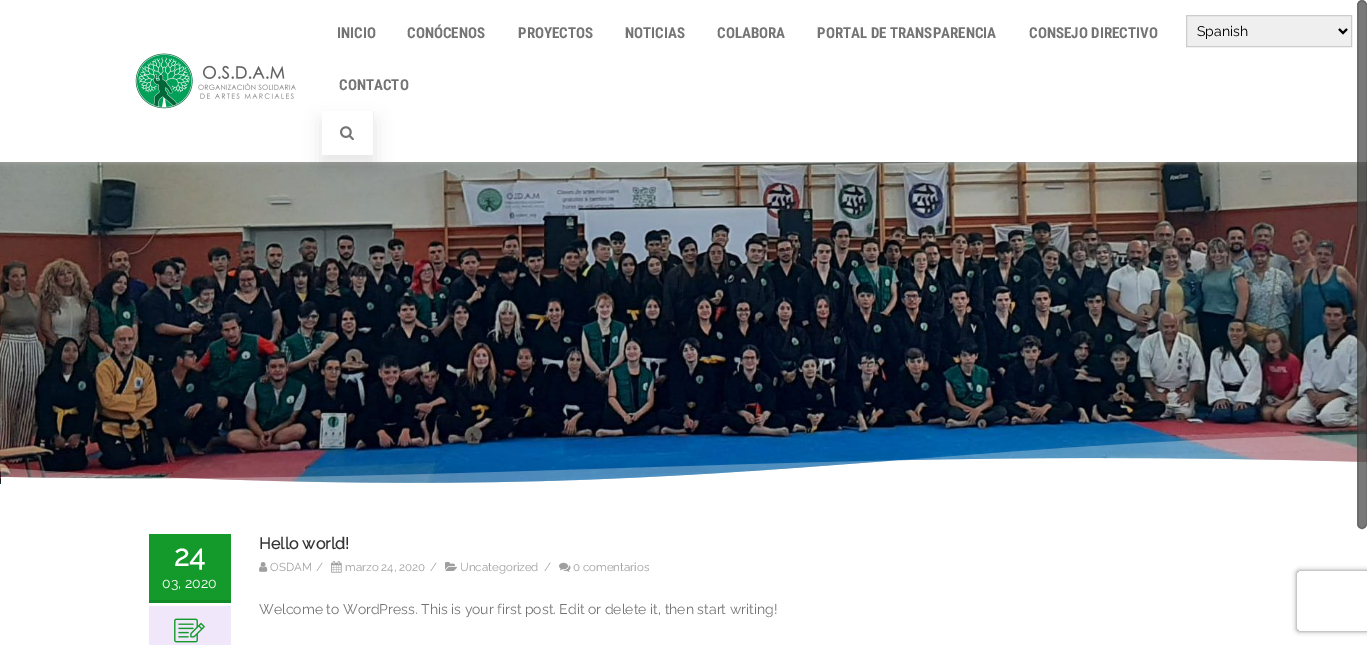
%!PS
<< /PageSize [1367 645] /PageUsesTransparency true >> setpagedevice
/rgb { 3 { 255 div 3 1 roll } repeat setrgbcolor } def
/font { [ exch dup neg 0 0 3 -1 roll 0 0 ] selectfont } def
/text { moveto show } def
/alpha { dup .setfillconstantalpha .setstrokeconstantalpha } def
/roundrect { 5 dict begin { /r /h /w /y /x } { exch def } forall
  x r add y moveto x w add y 2 copy h add r arct x w add y h add x 1 index r arct
  x y h add x y r arct x y 2 copy exch w add exch r arct closepath end } def
/shadow { 12 dict begin { /a /b /q /h /w /y /x } { exch def } forall gsave /was 0 def
  9 -2 -9 { dup b mul 4 div /e exch def 1 sub .425 mul 2.718 exch exp 1 add a .99 .min exch div /now exch def
    1 1 now sub 1 was sub div sub alpha /was now def
    w h .min e 2 mul add 0 gt { x e sub y e sub w e 2 mul add h e 2 mul add
      q e add b .6 mul add w h .min 2 div e add .min 0 .max roundrect fill } if } for grestore end } def
/picture { 5 dict begin { /h /w /y /x /name } { exch def } forall
  gsave x y translate w h scale
  w h 8 [w 0 0 h 0 0] name (r) file false 3 colorimage grestore end } def
0 .pushpdf14devicefilter
0 645 translate 1 -1 scale
4 setmiterlimit
255 255 255 rgb
0 0 1367 645 rectfill
(img_03.rgb) 0 162 1367 322 picture
gsave
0 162 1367 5 rectclip
167 169 164 rgb
0 1 1367 162 0 2 0.75 shadow
grestore
(img_01.rgb) 135 53 161 56 picture
gsave
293 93 moveto 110 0 rlineto 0 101 rlineto -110 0 rlineto closepath 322 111 moveto 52 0 rlineto 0 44 rlineto -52 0 rlineto closepath eoclip newpath
64 64 64 rgb
321 121 54 45 0 9 0.13 shadow
grestore
241 241 241 rgb
373 111 1 44 rectfill
(img_02.rgb) 340 126 14 15 picture
(img_04.rgb) 1 434 1366 50 picture
19 154 43 rgb
149 534 82 66 rectfill
17 139 39 rgb
149 600 82 3 rectfill
240 231 250 rgb
149 606 82 39 rectfill
(img_05.rgb) 174 618 31 25 picture
(img_06.rgb) 259 562 9 10 picture
(img_07.rgb) 331 561 11 12 picture
(img_08.rgb) 445 561 12 10 picture
(img_09.rgb) 559 562 12 10 picture
239 239 239 rgb
1186.5 15.5 moveto 165 0 rlineto 0 31 rlineto -165 0 rlineto closepath gsave fill grestore
204 204 204 rgb
stroke
0 0 0 rgb
2 setlinewidth
1339 29 moveto 4 4 rlineto 4 -4 rlineto stroke
0.71 alpha
66 66 66 rgb
1358 1 8 527 4 roundrect fill
51 51 51 rgb
1 setlinewidth
1357.5 0.5 9 528 4.5 roundrect stroke
gsave
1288 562 moveto 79 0 rlineto 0 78 rlineto -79 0 rlineto closepath 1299 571 moveto 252 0 rlineto 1 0 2 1 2 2 rcurveto 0 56 rlineto 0 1 -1 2 -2 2 rcurveto -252 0 rlineto -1 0 -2 -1 -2 -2 rcurveto 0 -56 rlineto 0 -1 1 -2 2 -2 rcurveto closepath eoclip newpath
1 alpha
128 128 128 rgb
1297 571 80 60 2 2.5 1 shadow
grestore
/RobotoCondensed-Bold 15 font
1 alpha
116 116 116 rgb
(INICIO) 337 38 text
(CONÓCENOS) 407 38 text
(PROYECTOS) 518 38 text
(NOTICIAS) 625 38 text
(COLABORA) 717 38 text
(PORTAL DE TRANSPARENCIA) 817 38 text
(CONSEJO DIRECTIVO) 1029 38 text
(CONTACTO) 339 90 text
/Raleway-Bold 29 font
255 255 255 rgb
(24) 174 566 text
/Raleway-Regular 14 font
(03, 2020) 162 588 text
/Raleway-Bold 16 font
51 51 51 rgb
(Hello world!) 259 549 text
/Raleway-Regular 11.5 font
159 159 159 rgb
(OSDAM) 270 571 text
(/) 316 571 text
(marzo 24, 2020) 345 571 text
(/) 430 571 text
(Uncategorized) 460 571 text
(/) 544 571 text
(0 comentarios) 573 571 text
/Raleway-Regular 14 font
116 116 116 rgb
(Welcome to WordPress. This is your first post. Edit or delete it, then start writing!) 259 614 text
0 0 0 rgb
(Spanish) 1197 36 text
.poppdf14devicefilter showpage
